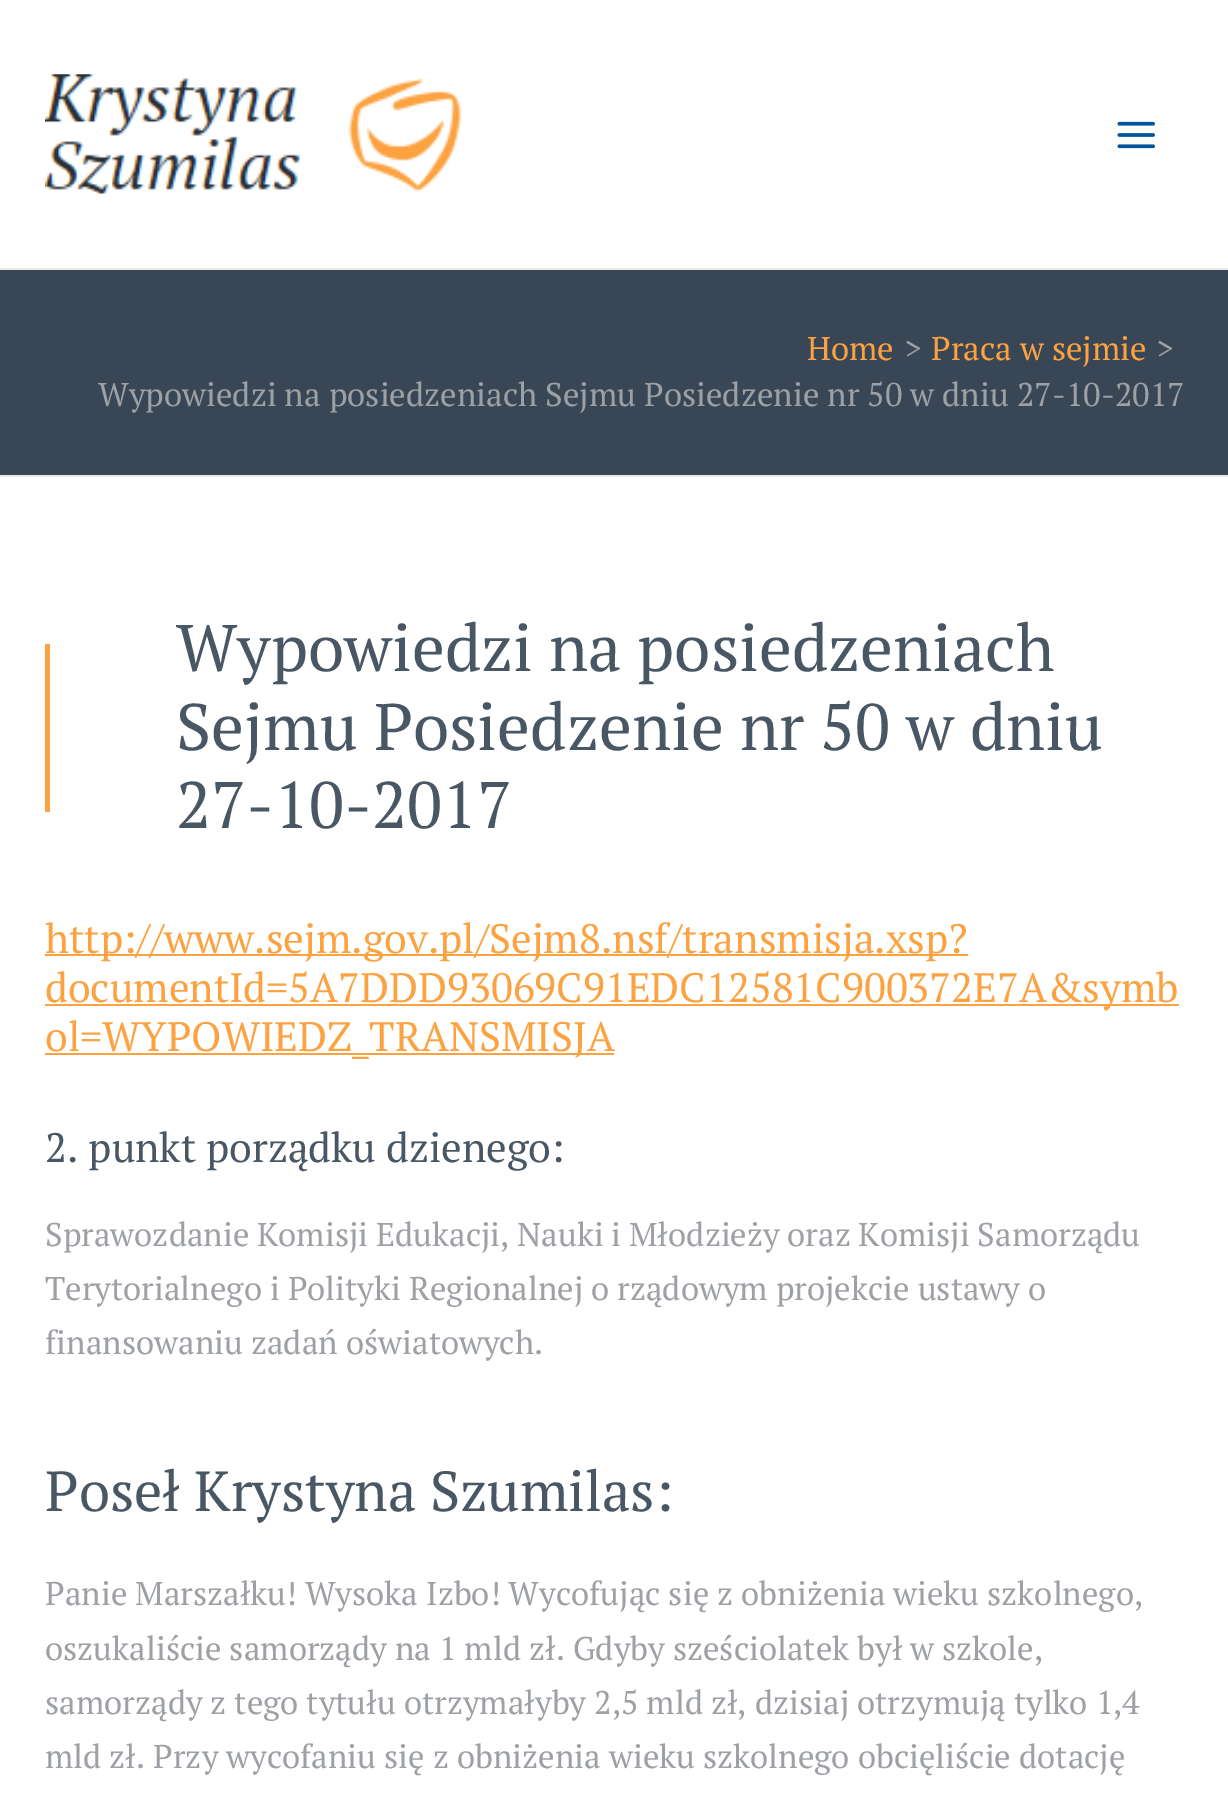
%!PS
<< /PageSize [1228 1793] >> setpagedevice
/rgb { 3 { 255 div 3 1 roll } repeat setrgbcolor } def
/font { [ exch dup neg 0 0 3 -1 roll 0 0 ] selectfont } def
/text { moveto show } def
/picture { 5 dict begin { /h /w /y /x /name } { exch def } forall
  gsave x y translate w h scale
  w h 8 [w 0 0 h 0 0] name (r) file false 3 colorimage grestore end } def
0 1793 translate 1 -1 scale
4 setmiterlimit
255 255 255 rgb
0 0 1228 1793 rectfill
234 234 234 rgb
0 268 1228 2 rectfill
(img_01.rgb) 45 74 417 120 picture
(img_02.rgb) 1117 121 38 28 picture
56 70 86 rgb
0 270 1228 205 rectfill
234 234 234 rgb
0 475 1228 2 rectfill
252 162 65 rgb
45 644 5 168 rectfill
45 954 923 2 rectfill
45 1004 1134 2 rectfill
45 1053 569 2 rectfill
/PTSerif-Regular 32.85 font
(Home) 807 360 text
157 161 165 rgb
(>) 904 360 text
252 162 65 rgb
(Praca w sejmie) 931 360 text
157 161 165 rgb
(>) 1156 360 text
(Wypowiedzi na posiedzeniach Sejmu Posiedzenie nr 50 w dniu 27-10-2017) 98 406 text
/PTSerif-Regular 65.7 font
73 87 100 rgb
(Wypowiedzi na posiedzeniach) 176 671 text
(Sejmu Posiedzenie nr 50 w dniu) 176 750 text
(27-10-2017) 176 828 text
/PTSerif-Regular 41.05 font
252 162 65 rgb
(http://www.sejm.gov.pl/Sejm8.nsf/transmisja.xsp?) 45 953 text
(documentId=5A7DDD93069C91EDC12581C900372E7A&symb) 45 1002 text
(ol=WYPOWIEDZ_TRANSMISJA) 45 1051 text
73 87 100 rgb
(2. punkt porządku dzienego:) 45 1162 text
/PTSerif-Regular 32.85 font
157 161 165 rgb
45 1246 moveto -0.25 0 32 (Sprawozdanie Komisji Edukacji, Nauki i Młodzieży oraz Komisji Samorządu) widthshow
(Terytorialnego i Polityki Regionalnej o rządowym projekcie ustawy o) 45 1300 text
(finansowaniu zadań oświatowych.) 45 1354 text
/PTSerif-Regular 56.25 font
73 87 100 rgb
(Poseł Krystyna Szumilas:) 45 1511 text
/PTSerif-Regular 32.85 font
157 161 165 rgb
(Panie Marszałku! Wysoka Izbo! Wycofując się z obniżenia wieku szkolnego,) 45 1605 text
(oszukaliście samorządy na 1 mld zł. Gdyby sześciolatek był w szkole,) 45 1660 text
(samorządy z tego tytułu otrzymałyby 2,5 mld zł, dzisiaj otrzymują tylko 1,4) 45 1714 text
(mld zł. Przy wycofaniu się z obniżenia wieku szkolnego obcięliście dotację) 45 1768 text
showpage
